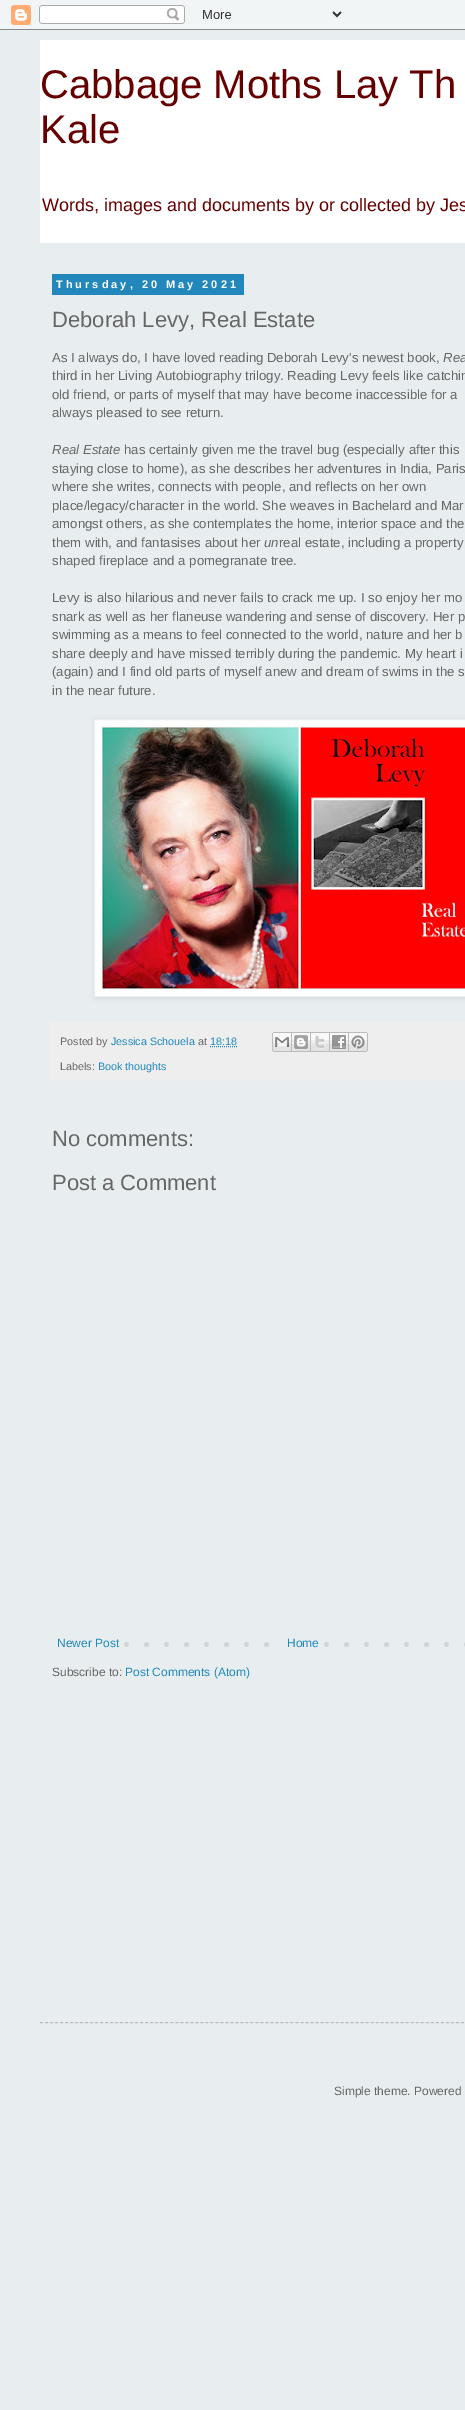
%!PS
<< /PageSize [465 2410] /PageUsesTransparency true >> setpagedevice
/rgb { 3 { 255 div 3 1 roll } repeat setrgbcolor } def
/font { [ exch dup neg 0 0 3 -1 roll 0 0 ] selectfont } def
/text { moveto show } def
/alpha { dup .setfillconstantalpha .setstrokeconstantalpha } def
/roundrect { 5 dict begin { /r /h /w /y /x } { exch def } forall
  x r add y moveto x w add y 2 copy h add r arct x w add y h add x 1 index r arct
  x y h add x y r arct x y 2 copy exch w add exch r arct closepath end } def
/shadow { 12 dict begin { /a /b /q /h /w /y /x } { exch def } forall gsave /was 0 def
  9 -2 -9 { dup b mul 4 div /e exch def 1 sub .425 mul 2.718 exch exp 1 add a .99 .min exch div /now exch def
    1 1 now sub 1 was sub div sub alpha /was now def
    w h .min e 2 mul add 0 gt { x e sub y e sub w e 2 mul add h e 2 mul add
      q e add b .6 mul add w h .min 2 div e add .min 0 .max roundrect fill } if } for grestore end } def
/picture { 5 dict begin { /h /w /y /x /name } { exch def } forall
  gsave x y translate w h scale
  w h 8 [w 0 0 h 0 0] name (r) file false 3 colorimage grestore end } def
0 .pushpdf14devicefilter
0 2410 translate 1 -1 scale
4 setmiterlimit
232 238 240 rgb
0 0 465 2410 rectfill
(img_01.rgb) 0 0 465 30 picture
255 255 255 rgb
40 40 425 203 rectfill
34 136 187 rgb
52 274 192 21 rectfill
0 0 0 rgb
95 720 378 278 0 2.5 0.1 shadow
255 255 255 rgb
94.5 719.5 moveto 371 0 rlineto 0 277 rlineto -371 0 rlineto closepath gsave fill grestore
238 238 238 rgb
stroke
(img_02.rgb) 100 725 365 266 picture
50 1022 415 59 rectfill
34 136 187 rgb
[1 1] 0 setdash
210 1046.5 moveto 27 0 rlineto stroke
(img_03.rgb) 272 1032 20 20 picture
(img_04.rgb) 292 1032 19 20 picture
(img_05.rgb) 311 1032 19 20 picture
(img_06.rgb) 330 1032 19 20 picture
(img_07.rgb) 349 1032 19 20 picture
(img_08.rgb) 124 1642 341 5 picture
232 238 240 rgb
284 1642 26 5 rectfill
187 187 187 rgb
[3 2.01] 0 setdash
40 2022.5 moveto 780 0 rlineto stroke
/LiberationSans-Regular 40 font
102 0 0 rgb
(Cabbage Moths Lay Th) 40 98 text
(Kale) 40 143 text
/LiberationSans-Regular 18 font
(Words, images and documents by or collected by Jes) 42 211 text
/LiberationSans-Bold 11 font
255 255 255 rgb
56 288 moveto 3 0 (Thursday, 20 May 2021) ashow
/LiberationSans-Regular 22 font
102 102 102 rgb
(Deborah Levy, Real Estate) 52 327 text
/LiberationSans-Regular 13.2 font
(As I always do, I have loved reading Deborah Levy's newest book,) 52 362 text
/LiberationSans-Italic 13.2 font
(Rea) 443 362 text
/LiberationSans-Regular 13.2 font
(third in her Living Autobiography trilogy. Reading Levy feels like catchin) 52 380 text
(old friend, or parts of myself that may have become inaccessible for a) 52 399 text
(always pleased to see return.) 52 417 text
/LiberationSans-Italic 13.2 font
(Real Estate) 52 454 text
/LiberationSans-Regular 13.2 font
(has certainly given me the travel bug \(especially after this) 124 454 text
(staying close to home\), as she describes her adventures in India, Paris) 52 473 text
(where she writes, connects with people, and reflects on her own) 52 491 text
(place/legacy/character in the world. She weaves in Bachelard and Mar) 52 510 text
(amongst others, as she contemplates the home, interior space and the) 52 528 text
(them with, and fantasises about her) 52 547 text
/LiberationSans-Italic 13.2 font
(un) 264 547 text
/LiberationSans-Regular 13.2 font
(real estate, including a property) 279 547 text
(shaped fireplace and a pomegranate tree.) 52 565 text
(Levy is also hilarious and never fails to crack me up. I so enjoy her mo) 52 602 text
(snark as well as her flaneuse wandering and sense of discovery. Her p) 52 621 text
(swimming as a means to feel connected to the world, nature and her b) 52 639 text
(share deeply and have missed terribly during the pandemic. My heart i) 52 658 text
(\(again\) and I find old parts of myself anew and dream of swims in the s) 52 676 text
(in the near future.) 52 695 text
/LiberationSans-Regular 10.75 font
(Posted by) 60 1045 text
34 136 187 rgb
(Jessica Schouela) 111 1045 text
102 102 102 rgb
(at) 198 1045 text
34 136 187 rgb
(18:18) 210 1045 text
102 102 102 rgb
(Labels:) 60 1070 text
34 136 187 rgb
(Book thoughts) 98 1070 text
/LiberationSans-Regular 22 font
102 102 102 rgb
(No comments:) 52 1146 text
(Post a Comment) 52 1190 text
/LiberationSans-Regular 12 font
34 136 187 rgb
(Newer Post) 57 1647 text
(Home) 287 1647 text
102 102 102 rgb
(Subscribe to:) 52 1676 text
34 136 187 rgb
(Post Comments \(Atom\)) 125 1676 text
102 102 102 rgb
(Simple theme. Powered) 334 2095 text
.poppdf14devicefilter showpage
